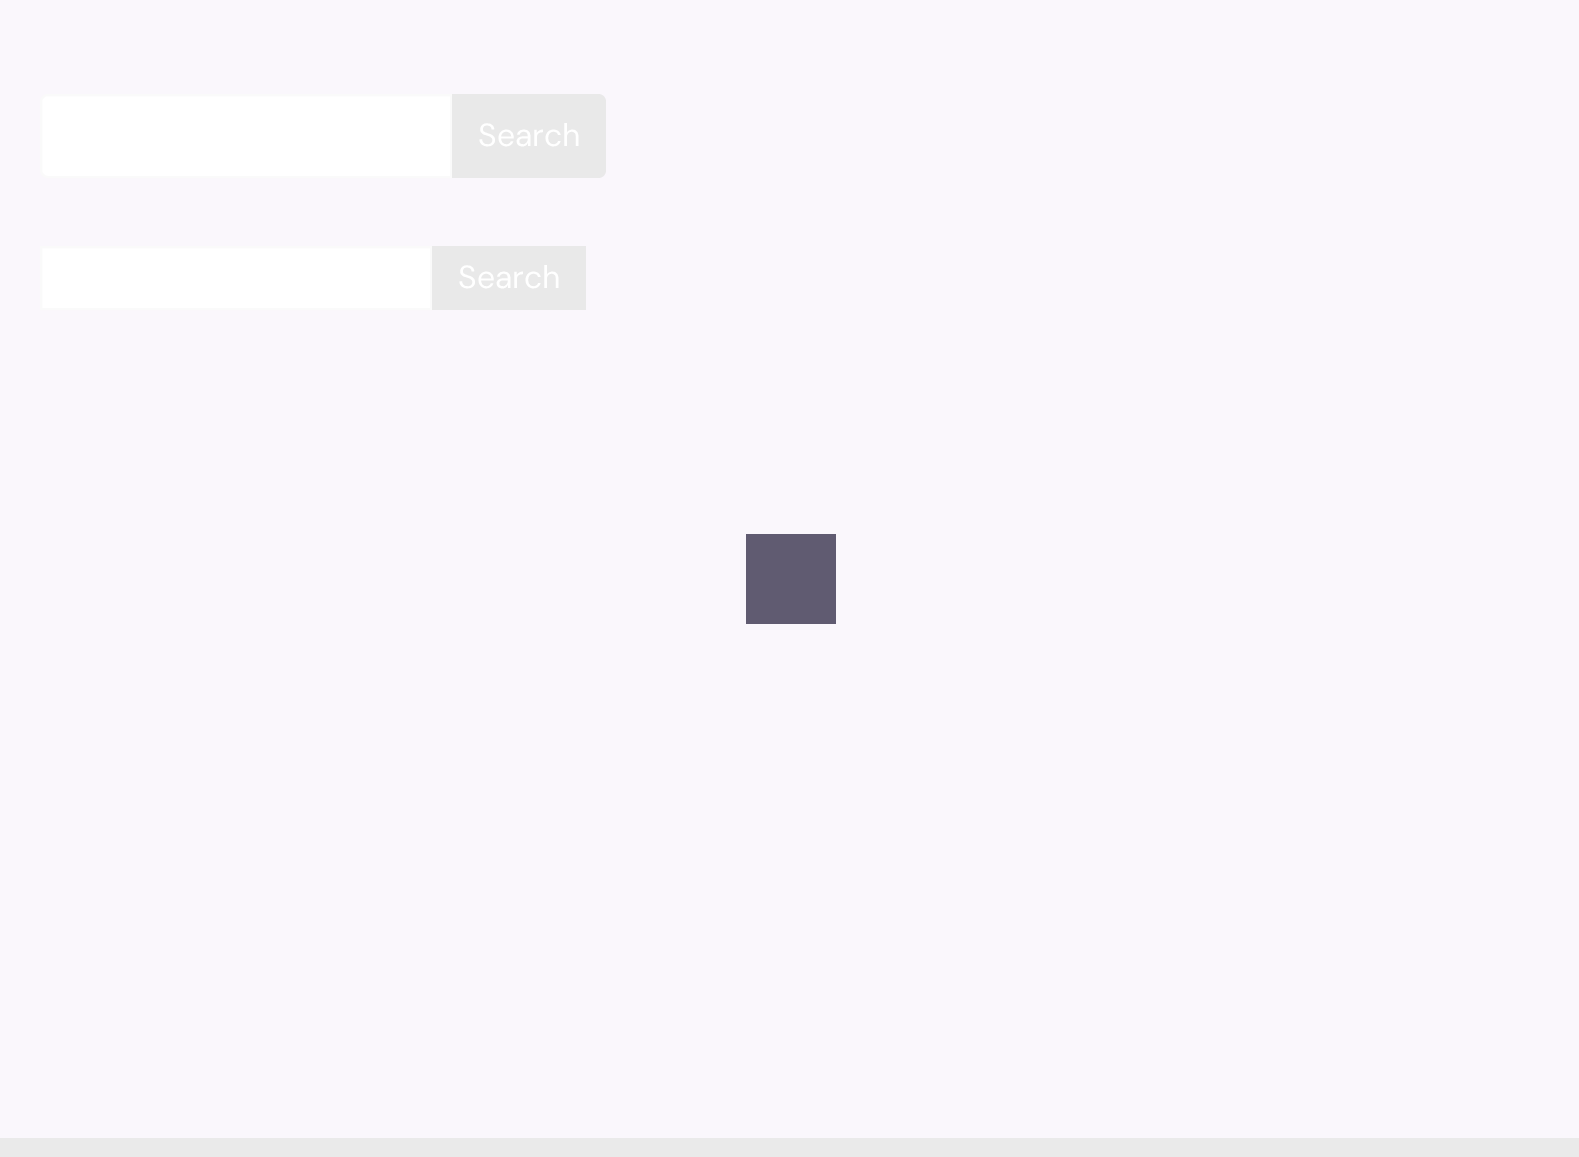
%!PS
<< /PageSize [1579 1157] >> setpagedevice
/rgb { 3 { 255 div 3 1 roll } repeat setrgbcolor } def
/font { [ exch dup neg 0 0 3 -1 roll 0 0 ] selectfont } def
/text { moveto show } def
0 1157 translate 1 -1 scale
4 setmiterlimit
250 247 252 rgb
0 0 1579 1157 rectfill
255 255 255 rgb
48 95 moveto 403 0 rlineto 0 82 rlineto -403 0 rlineto -4 0 -7 -3 -7 -7 rcurveto 0 -68 rlineto 0 -4 3 -7 7 -7 rcurveto closepath gsave fill grestore
250 250 250 rgb
2 setlinewidth
stroke
233 233 233 rgb
452 94 moveto 146 0 rlineto 4.5 0 8 3.5 8 8 rcurveto 0 68 rlineto 0 4.5 -3.5 8 -8 8 rcurveto -146 0 rlineto closepath fill
255 255 255 rgb
41 247 moveto 390 0 rlineto 0 62 rlineto -390 0 rlineto closepath gsave fill grestore
250 250 250 rgb
stroke
233 233 233 rgb
432 246 154 64 rectfill
96 91 113 rgb
746 534 90 90 rectfill
234 234 234 rgb
0 1138 1579 19 rectfill
/DMSans-Regular 32 font
255 255 255 rgb
(Search) 478 146 text
(Search) 458 288 text
showpage
